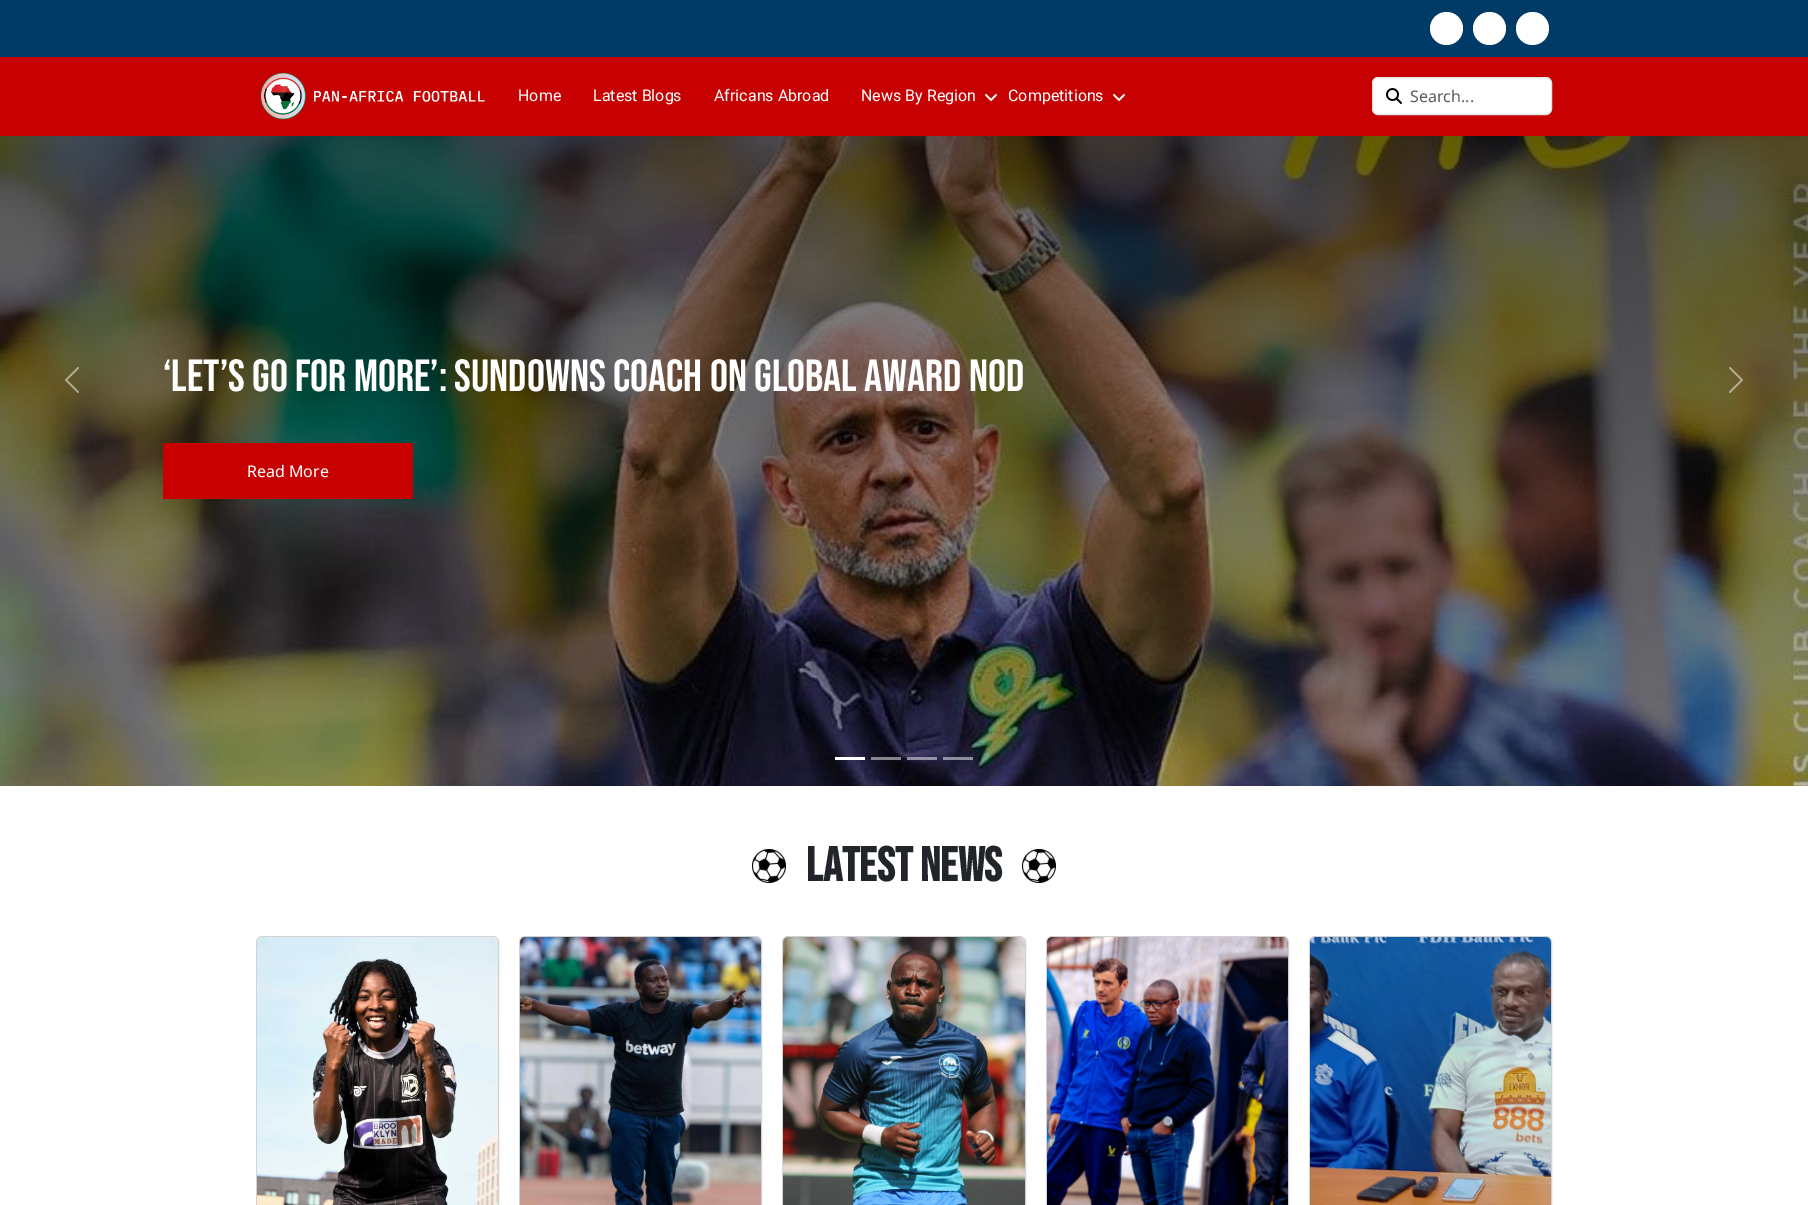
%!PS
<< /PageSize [1808 1205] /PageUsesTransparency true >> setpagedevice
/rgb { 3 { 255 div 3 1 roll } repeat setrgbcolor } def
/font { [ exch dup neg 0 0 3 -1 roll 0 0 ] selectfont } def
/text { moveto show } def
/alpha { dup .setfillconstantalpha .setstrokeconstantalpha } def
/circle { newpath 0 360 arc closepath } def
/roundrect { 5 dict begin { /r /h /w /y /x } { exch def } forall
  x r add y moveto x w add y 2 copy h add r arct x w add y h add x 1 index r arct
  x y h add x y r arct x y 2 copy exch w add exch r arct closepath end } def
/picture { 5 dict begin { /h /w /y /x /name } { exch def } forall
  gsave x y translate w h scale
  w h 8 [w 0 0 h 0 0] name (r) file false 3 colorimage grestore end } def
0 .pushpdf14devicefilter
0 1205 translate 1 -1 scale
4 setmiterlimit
255 255 255 rgb
0 0 1808 1205 rectfill
0 58 102 rgb
0 0 1808 57 rectfill
255 255 255 rgb
1446.5 28.5 16.5 circle fill
1489.5 28.5 16.5 circle fill
1532.5 28.5 16.5 circle fill
199 1 1 rgb
0 57 1808 79 rectfill
(img_01.rgb) 260 73 225 47 picture
(img_02.rgb) 985 94 12 7 picture
(img_02.rgb) 1113 94 12 7 picture
255 255 255 rgb
1372.5 77.5 179 37 5.5 roundrect gsave fill grestore
222 226 230 rgb
stroke
(img_03.rgb) 1386 88 16 16 picture
(img_05.rgb) 0 136 1808 650 picture
(img_04.rgb) 65 367 14 26 picture
199 1 1 rgb
163 443 250 56 rectfill
(img_06.rgb) 1729 367 14 26 picture
255 255 255 rgb
835 757 30 3 rectfill
0.5 alpha
871 757 30 3 rectfill
907 757 30 3 rectfill
943 757 30 3 rectfill
1 alpha
(img_07.rgb) 752 849 34 34 picture
(img_07.rgb) 1022 849 34 34 picture
210 210 210 rgb
256.5 936.5 242 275 5.5 roundrect stroke
(img_08.rgb) 257 937 241 268 picture
519.5 936.5 242 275 5.5 roundrect stroke
(img_09.rgb) 520 937 241 268 picture
782.5 936.5 243 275 5.5 roundrect stroke
(img_10.rgb) 783 937 242 268 picture
1046.5 936.5 242 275 5.5 roundrect stroke
(img_11.rgb) 1047 937 241 268 picture
1309.5 936.5 242 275 5.5 roundrect stroke
(img_12.rgb) 1310 937 241 268 picture
/Heebo-Regular 16 font
255 255 255 rgb
(Home) 518 101 text
(Latest Blogs) 593 101 text
(Africans Abroad) 714 101 text
(News By Region) 861 101 text
(Competitions) 1008 101 text
/NotoSans-Regular 16 font
89 92 95 rgb
(Search...) 1410 102 text
/BebasNeue-Regular 45 font
255 255 255 rgb
(‘Let’s go for more’: Sundowns coach on global award nod) 163 391 text
/NotoSans-Regular 16 font
(Read More) 247 477 text
/BebasNeue-Bold 48 font
33 37 41 rgb
(Latest News) 806 881 text
.poppdf14devicefilter showpage
